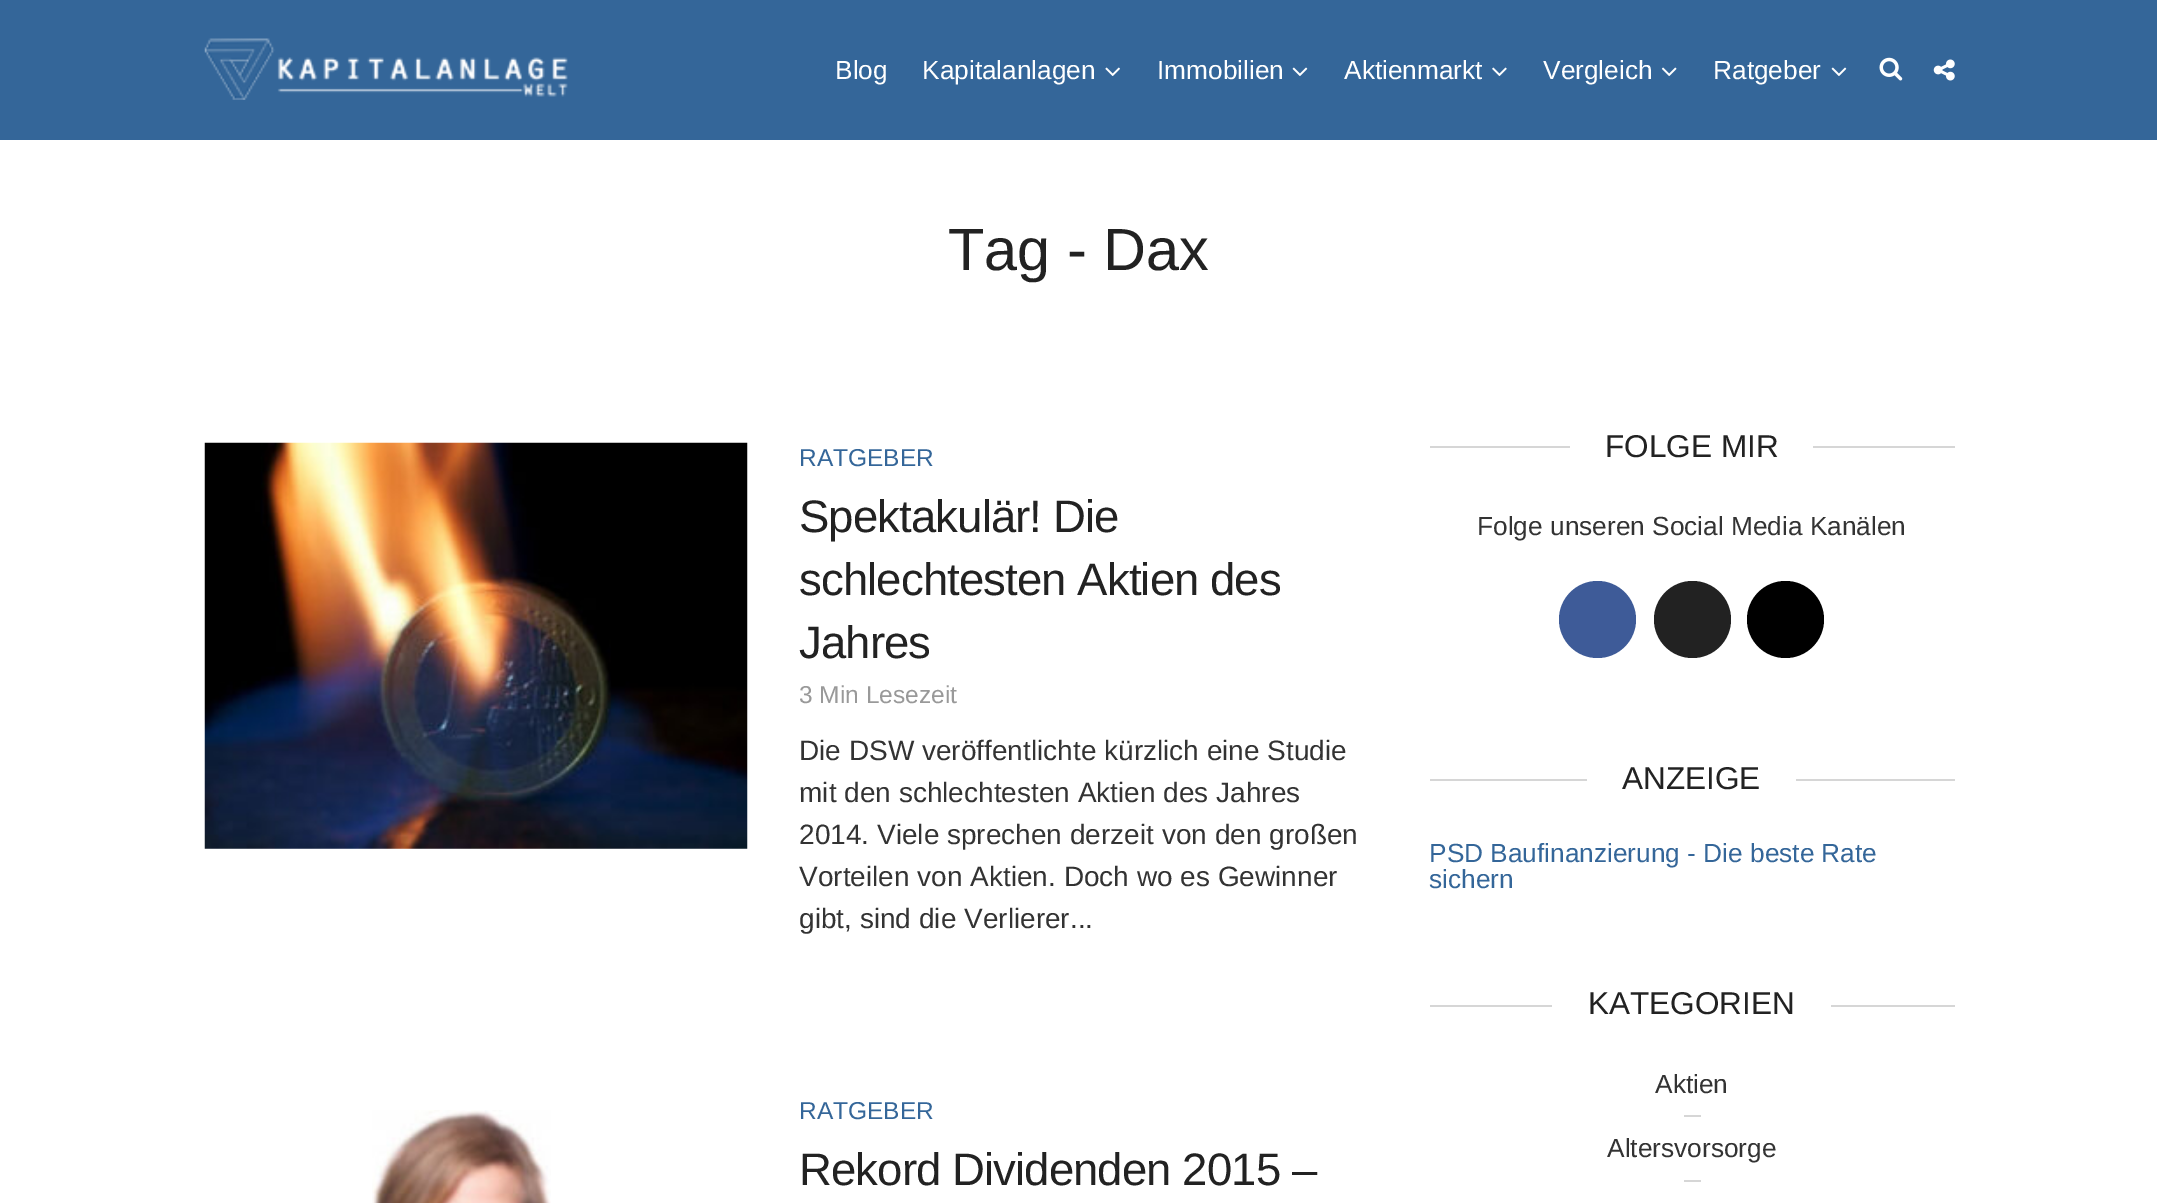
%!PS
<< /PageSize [2157 1203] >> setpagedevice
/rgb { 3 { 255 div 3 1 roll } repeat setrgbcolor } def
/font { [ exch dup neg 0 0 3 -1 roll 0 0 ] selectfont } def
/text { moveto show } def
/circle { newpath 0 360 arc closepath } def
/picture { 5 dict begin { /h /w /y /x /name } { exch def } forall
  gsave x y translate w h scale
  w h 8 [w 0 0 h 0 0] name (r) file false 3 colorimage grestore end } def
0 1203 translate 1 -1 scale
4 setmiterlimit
255 255 255 rgb
0 0 2157 1203 rectfill
52 102 153 rgb
0 0 2157 140 rectfill
(img_01.rgb) 204 38 364 62 picture
(img_02.rgb) 1105 67 15 9 picture
(img_03.rgb) 1292 67 16 9 picture
(img_04.rgb) 1492 67 15 9 picture
(img_05.rgb) 1661 67 16 9 picture
(img_03.rgb) 1831 67 16 9 picture
(img_06.rgb) 1879 57 24 24 picture
(img_07.rgb) 1933 59 22 22 picture
(img_08.rgb) 204 442 544 407 picture
(img_09.rgb) 372 1110 179 93 picture
214 214 214 rgb
1430 446 525 2 rectfill
255 255 255 rgb
1570 446 243 2 rectfill
62 91 152 rgb
1597.5 619.5 38.5 circle fill
34 34 34 rgb
1692.5 619.5 38.5 circle fill
0 0 0 rgb
1785.5 619.5 38.5 circle fill
214 214 214 rgb
1430 779 525 2 rectfill
255 255 255 rgb
1587 779 209 2 rectfill
214 214 214 rgb
1430 1005 525 2 rectfill
255 255 255 rgb
1552 1005 279 2 rectfill
214 214 214 rgb
1684 1115 17 2 rectfill
1684 1180 17 2 rectfill
/LiberationSans-Regular 26.25 font
255 255 255 rgb
(Blog) 835 79 text
(Kapitalanlagen) 922 79 text
(Immobilien) 1157 79 text
(Aktienmarkt) 1344 79 text
(Vergleich) 1543 79 text
(Ratgeber) 1713 79 text
/LiberationSans-Regular 59.5 font
34 34 34 rgb
(Tag - Dax) 948 270 text
/LiberationSans-Regular 24.5 font
52 102 153 rgb
(RATGEBER) 799 466 text
/LiberationSans-Regular 45.5 font
34 34 34 rgb
799 532 moveto -0.9 0 (Spektakulär! Die) ashow
799 595 moveto -0.9 0 (schlechtesten Aktien des) ashow
799 658 moveto -0.9 0 (Jahres) ashow
/LiberationSans-Regular 24.5 font
153 153 153 rgb
(3 Min Lesezeit) 799 703 text
/LiberationSans-Regular 28 font
51 51 51 rgb
(Die DSW veröffentlichte kürzlich eine Studie) 799 760 text
(mit den schlechtesten Aktien des Jahres) 799 802 text
(2014. Viele sprechen derzeit von den großen) 799 844 text
(Vorteilen von Aktien. Doch wo es Gewinner) 799 886 text
(gibt, sind die Verlierer...) 799 928 text
/LiberationSans-Regular 24.5 font
52 102 153 rgb
(RATGEBER) 799 1119 text
/LiberationSans-Regular 45.5 font
34 34 34 rgb
799 1185 moveto -0.9 0 (Rekord Dividenden 2015 –) ashow
/LiberationSans-Regular 31.5 font
(FOLGE MIR) 1605 457 text
/LiberationSans-Regular 26.25 font
51 51 51 rgb
(Folge unseren Social Media Kanälen) 1477 535 text
/LiberationSans-Regular 31.5 font
34 34 34 rgb
(ANZEIGE) 1622 789 text
/LiberationSans-Regular 26.25 font
52 102 153 rgb
(PSD Baufinanzierung - Die beste Rate) 1429 862 text
(sichern) 1429 888 text
/LiberationSans-Regular 31.5 font
34 34 34 rgb
(KATEGORIEN) 1588 1014 text
/LiberationSans-Regular 26.25 font
51 51 51 rgb
(Aktien) 1655 1093 text
(Altersvorsorge) 1607 1157 text
showpage
